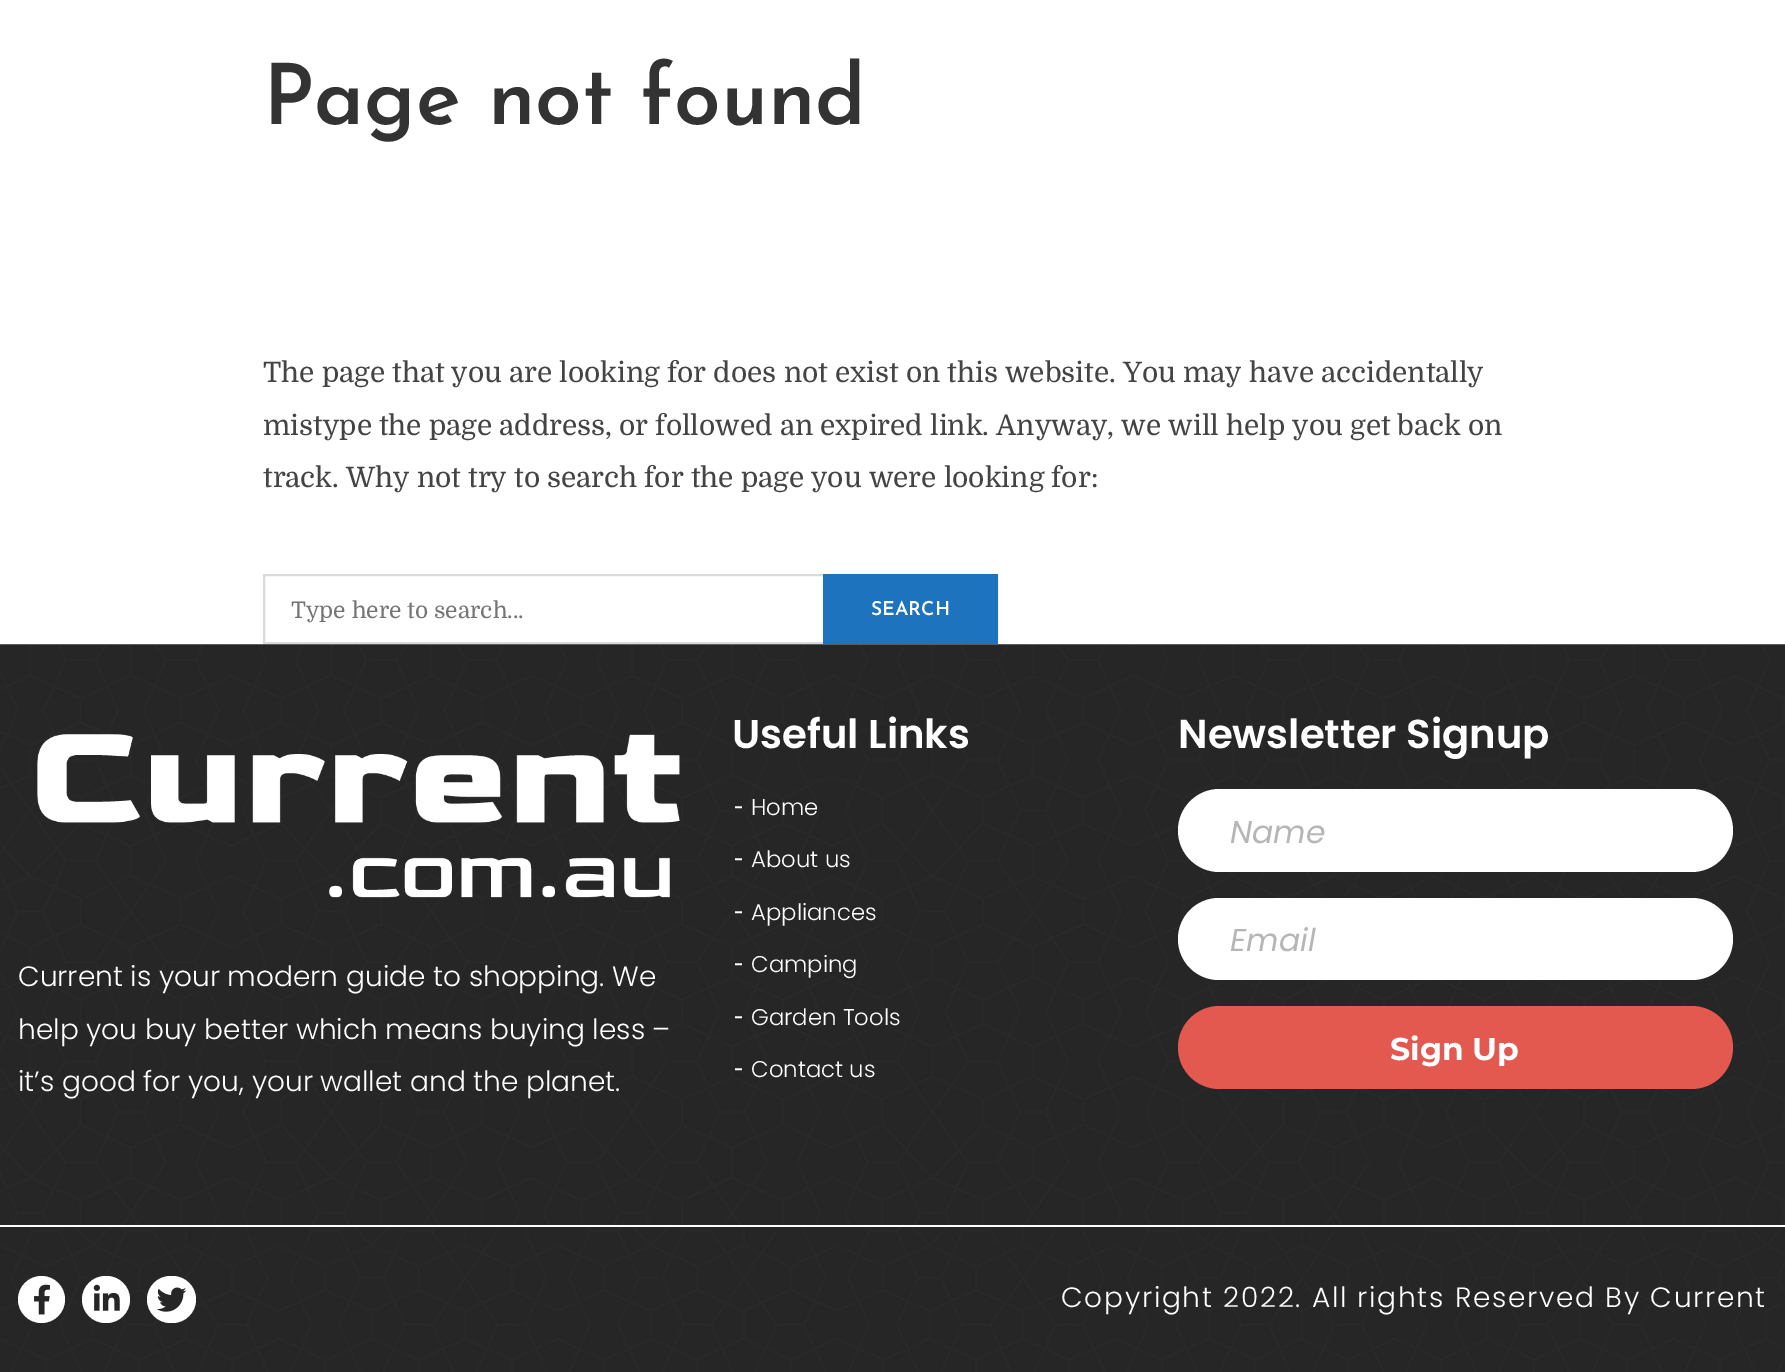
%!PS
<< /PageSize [1785 1372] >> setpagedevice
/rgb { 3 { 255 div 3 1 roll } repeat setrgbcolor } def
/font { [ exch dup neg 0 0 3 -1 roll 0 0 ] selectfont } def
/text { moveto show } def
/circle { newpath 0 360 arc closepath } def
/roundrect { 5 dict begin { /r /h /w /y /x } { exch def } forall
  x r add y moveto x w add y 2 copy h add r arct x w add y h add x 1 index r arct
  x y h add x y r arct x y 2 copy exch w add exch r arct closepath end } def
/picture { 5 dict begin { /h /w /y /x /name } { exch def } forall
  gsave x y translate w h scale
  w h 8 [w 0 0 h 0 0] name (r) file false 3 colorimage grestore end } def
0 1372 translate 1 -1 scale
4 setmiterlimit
255 255 255 rgb
0 0 1785 1372 rectfill
218 218 218 rgb
2 setlinewidth
264 575 733 68 rectstroke
30 115 190 rgb
823 574 175 70 rectfill
(img_01.rgb) 0 644 1785 581 picture
(img_02.rgb) 37 734 643 164 picture
255 255 255 rgb
1178 789 555 83 41.5 roundrect fill
1178 898 555 82 41 roundrect fill
227 89 80 rgb
1178 1006 555 83 41.5 roundrect fill
(img_03.rgb) 0 1227 1785 145 picture
255 255 255 rgb
41.5 1299.5 23.5 circle fill
(img_04.rgb) 34 1284 16 31 picture
82 1276 48 47 23.5 roundrect fill
(img_05.rgb) 93 1284 27 27 picture
147 1276 49 47 23.5 roundrect fill
(img_06.rgb) 156 1287 31 25 picture
/JosefinSans-SemiBold 84 font
51 51 51 rgb
(Page not found) 263 124 text
/Domine-Regular 28 font
68 68 68 rgb
(The page that you are looking for does not exist on this website. You may have accidentally) 263 382 text
(mistype the page address, or followed an expired link. Anyway, we will help you get back on) 263 435 text
(track. Why not try to search for the page you were looking for:) 263 487 text
/Domine-Regular 22.75 font
117 117 117 rgb
(Type here to search...) 291 618 text
/JosefinSans-SemiBold 19.25 font
255 255 255 rgb
(SEARCH) 871 615 text
/Poppins-Light 28 font
(Current is your modern guide to shopping. We) 18 986 text
(help you buy better which means buying less –) 18 1039 text
(it’s good for you, your wallet and the planet.) 18 1091 text
/Poppins-SemiBold 40.25 font
(Useful Links) 732 748 text
/Domine-Regular 28 font
(-) 733 815 text
/Poppins-Light 22.75 font
(Home) 751 815 text
/Domine-Regular 28 font
(-) 733 867 text
/Poppins-Light 22.75 font
(About us) 751 867 text
/Domine-Regular 28 font
(-) 733 920 text
/Poppins-Light 22.75 font
(Appliances) 751 920 text
/Domine-Regular 28 font
(-) 733 972 text
/Poppins-Light 22.75 font
(Camping) 751 972 text
/Domine-Regular 28 font
(-) 733 1025 text
/Poppins-Light 22.75 font
(Garden Tools) 751 1025 text
/Domine-Regular 28 font
(-) 733 1077 text
/Poppins-Light 22.75 font
(Contact us) 751 1077 text
/Poppins-SemiBold 40.25 font
(Newsletter Signup) 1178 748 text
/Poppins-Italic 31.5 font
182 182 182 rgb
(Name) 1230 843 text
(Email) 1230 951 text
/Montserrat-Bold 31.5 font
255 255 255 rgb
(Sign Up) 1390 1060 text
/Poppins-Light 28 font
1061 1307 moveto 1.75 0 (Copyright 2022. All rights Reserved By Current) ashow
showpage
